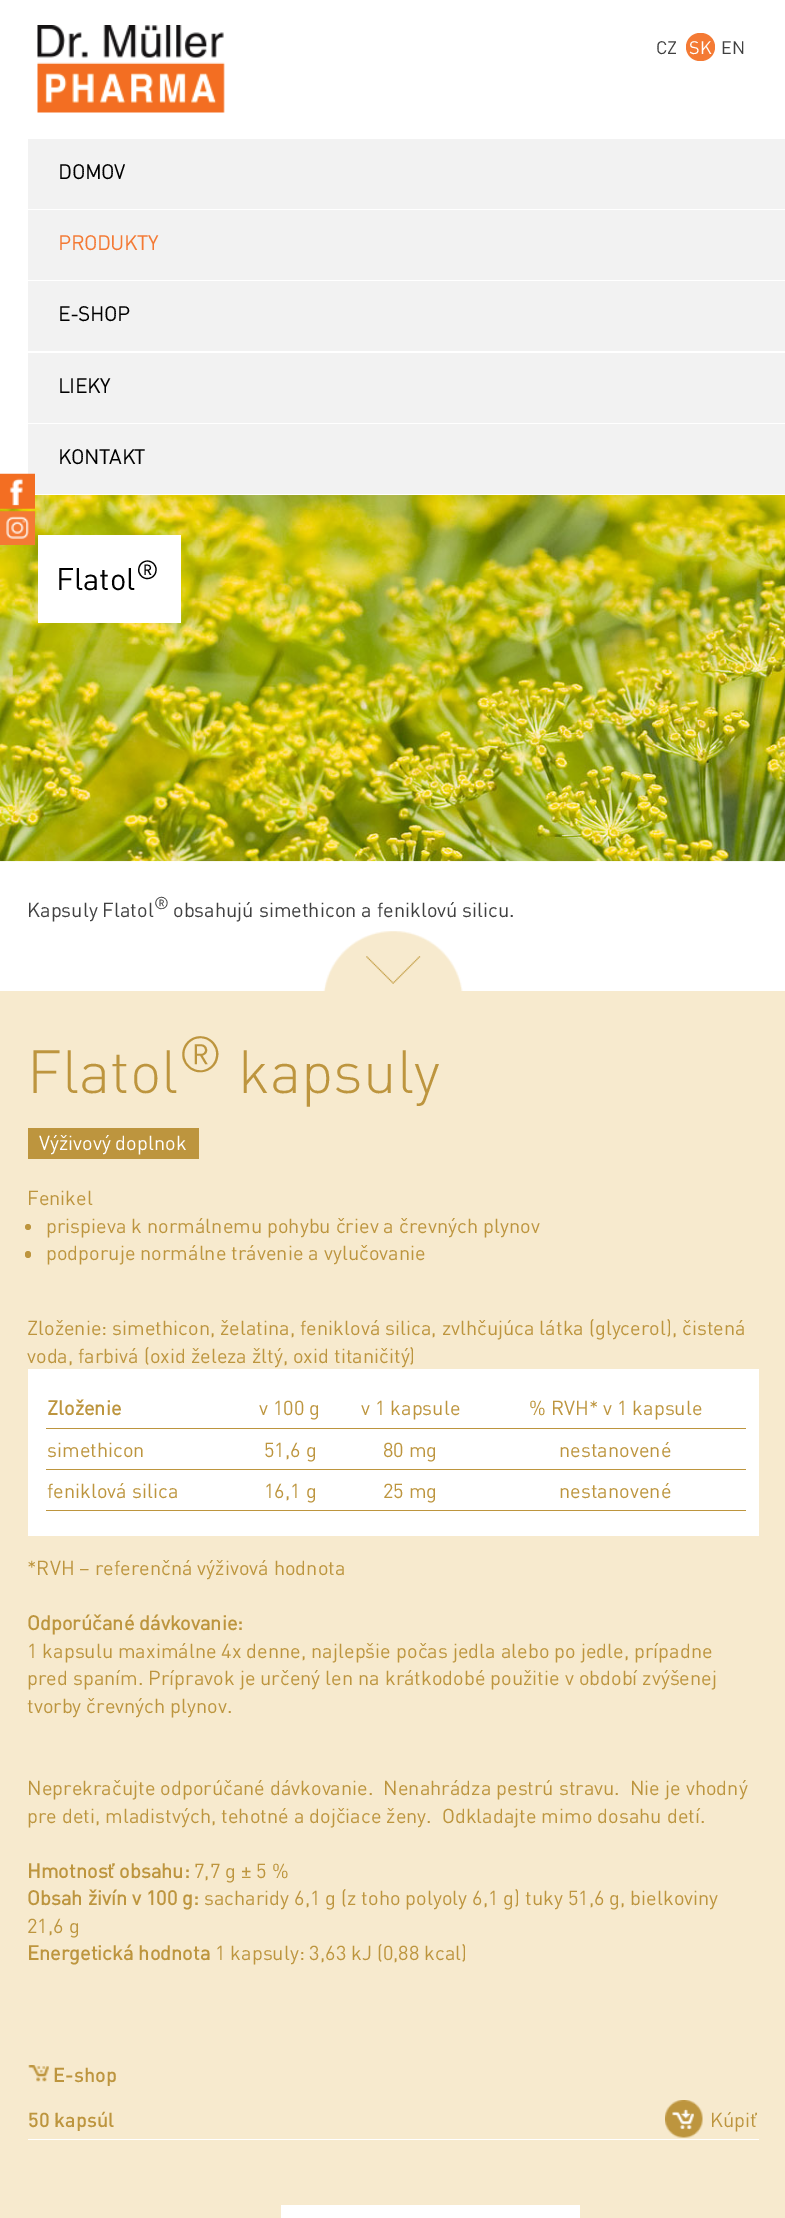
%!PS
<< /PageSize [785 2218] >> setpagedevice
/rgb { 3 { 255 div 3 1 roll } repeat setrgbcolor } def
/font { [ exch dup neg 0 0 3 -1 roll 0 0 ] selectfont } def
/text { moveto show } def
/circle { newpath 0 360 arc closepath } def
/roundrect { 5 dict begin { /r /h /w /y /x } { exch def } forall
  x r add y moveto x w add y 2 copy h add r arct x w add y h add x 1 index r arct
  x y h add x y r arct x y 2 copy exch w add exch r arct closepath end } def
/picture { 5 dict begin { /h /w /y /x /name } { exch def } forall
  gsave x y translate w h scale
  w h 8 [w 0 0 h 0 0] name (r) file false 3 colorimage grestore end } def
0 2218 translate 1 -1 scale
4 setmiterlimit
255 255 255 rgb
0 0 785 2218 rectfill
(img_01.rgb) 37 25 188 88 picture
244 122 52 rgb
686 33 29 28 14 roundrect fill
242 242 242 rgb
28 139 757 70 rectfill
28 210 757 70 rectfill
28 281 757 70 rectfill
28 353 757 70 rectfill
28 424 757 70 rectfill
(img_04.rgb) 0 495 785 367 picture
(img_02.rgb) 0 473 35 36 picture
(img_03.rgb) 0 511 35 34 picture
255 255 255 rgb
38 535 143 88 rectfill
(img_05.rgb) 323 931 140 60 picture
247 234 206 rgb
0 991 785 1227 rectfill
189 149 62 rgb
28 1128 171 31 rectfill
28 1227 3 circle fill
25 1251 6 7 3 roundrect fill
255 255 255 rgb
28 1369 731 167 rectfill
189 149 62 rgb
46 1428 700 1 rectfill
46 1469 700 1 rectfill
46 1510 700 1 rectfill
(img_06.rgb) 28 2065 21 17 picture
255 255 255 rgb
28 2139 731 1 rectfill
(img_07.rgb) 665 2100 38 38 picture
281 2205 299 13 rectfill
/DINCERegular-Regular 18 font
64 64 64 rgb
(CZ) 656 54 text
255 255 255 rgb
(SK) 689 54 text
64 64 64 rgb
(EN) 721 54 text
/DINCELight-Bold 20 font
0 0 0 rgb
(DOMOV) 58 179 text
244 122 52 rgb
(PRODUKTY) 58 250 text
0 0 0 rgb
(E-SHOP) 58 321 text
(LIEKY) 58 393 text
(KONTAKT) 58 464 text
/DINCERegular-Regular 31 font
(Flatol) 56 590 text
/DINCERegular-Regular 26 font
(®) 136 579 text
/DINCERegular-Regular 20 font
64 64 64 rgb
(Kapsuly Flatol) 27 917 text
/DINCERegular-Regular 17 font
(®) 154 909 text
/DINCERegular-Regular 20 font
(obsahujú simethicon a feniklovú silicu.) 173 917 text
/DINCELight-Light 60 font
189 149 62 rgb
(Flatol) 27 1093 text
/DINCELight-Light 50 font
(®) 178 1072 text
/DINCELight-Light 60 font
(kapsuly) 238 1093 text
/DINCERegular-Regular 20 font
255 255 255 rgb
(Výživový doplnok) 39 1150 text
189 149 62 rgb
(Fenikel) 27 1205 text
(prispieva k normálnemu pohybu čriev a črevných plynov) 46 1233 text
(podporuje normálne trávenie a vylučovanie) 46 1260 text
(Zloženie: simethicon, želatina, feniklová silica, zvlhčujúca látka \(glycerol\), čistená) 27 1335 text
(voda, farbivá \(oxid železa žltý, oxid titaničitý\)) 27 1363 text
/DINCERegular-Bold 20 font
(Zloženie) 47 1415 text
/DINCERegular-Regular 20 font
(v 100 g) 259 1415 text
(v 1 kapsule) 361 1415 text
(% RVH* v 1 kapsule) 529 1415 text
(simethicon) 47 1457 text
(51,6 g) 264 1457 text
(80 mg) 383 1457 text
(nestanovené) 559 1457 text
(feniklová silica) 47 1498 text
(16,1 g) 264 1498 text
(25 mg) 383 1498 text
(nestanovené) 559 1498 text
(*RVH – referenčná výživová hodnota) 27 1575 text
/DINCERegular-Bold 20 font
(Odporúčané dávkovanie:) 27 1630 text
/DINCERegular-Regular 20 font
(1 kapsulu maximálne 4x denne, najlepšie počas jedla alebo po jedle, prípadne) 27 1658 text
(pred spaním. Prípravok je určený len na krátkodobé použitie v období zvýšenej) 27 1685 text
(tvorby črevných plynov.) 27 1713 text
(Neprekračujte odporúčané dávkovanie.  Nenahrádza pestrú stravu.  Nie je vhodný) 27 1795 text
(pre deti, mladistvých, tehotné a dojčiace ženy.  Odkladajte mimo dosahu detí.) 27 1823 text
/DINCERegular-Bold 20 font
(Hmotnosť obsahu:) 27 1878 text
/DINCERegular-Regular 20 font
(7,7 g ± 5 %) 194 1878 text
/DINCERegular-Bold 20 font
(Obsah živín v 100 g:) 27 1905 text
/DINCERegular-Regular 20 font
(sacharidy 6,1 g \(z toho polyoly 6,1 g\) tuky 51,6 g, bielkoviny) 204 1905 text
(21,6 g) 27 1933 text
/DINCERegular-Bold 20 font
(Energetická hodnota) 27 1960 text
/DINCERegular-Regular 20 font
(1 kapsuly: 3,63 kJ \(0,88 kcal\)) 215 1960 text
/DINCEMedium-Medium 20 font
(E-shop) 53 2082 text
(50 kapsúl) 28 2127 text
/DINCERegular-Regular 20 font
(Kúpiť) 710 2127 text
showpage
